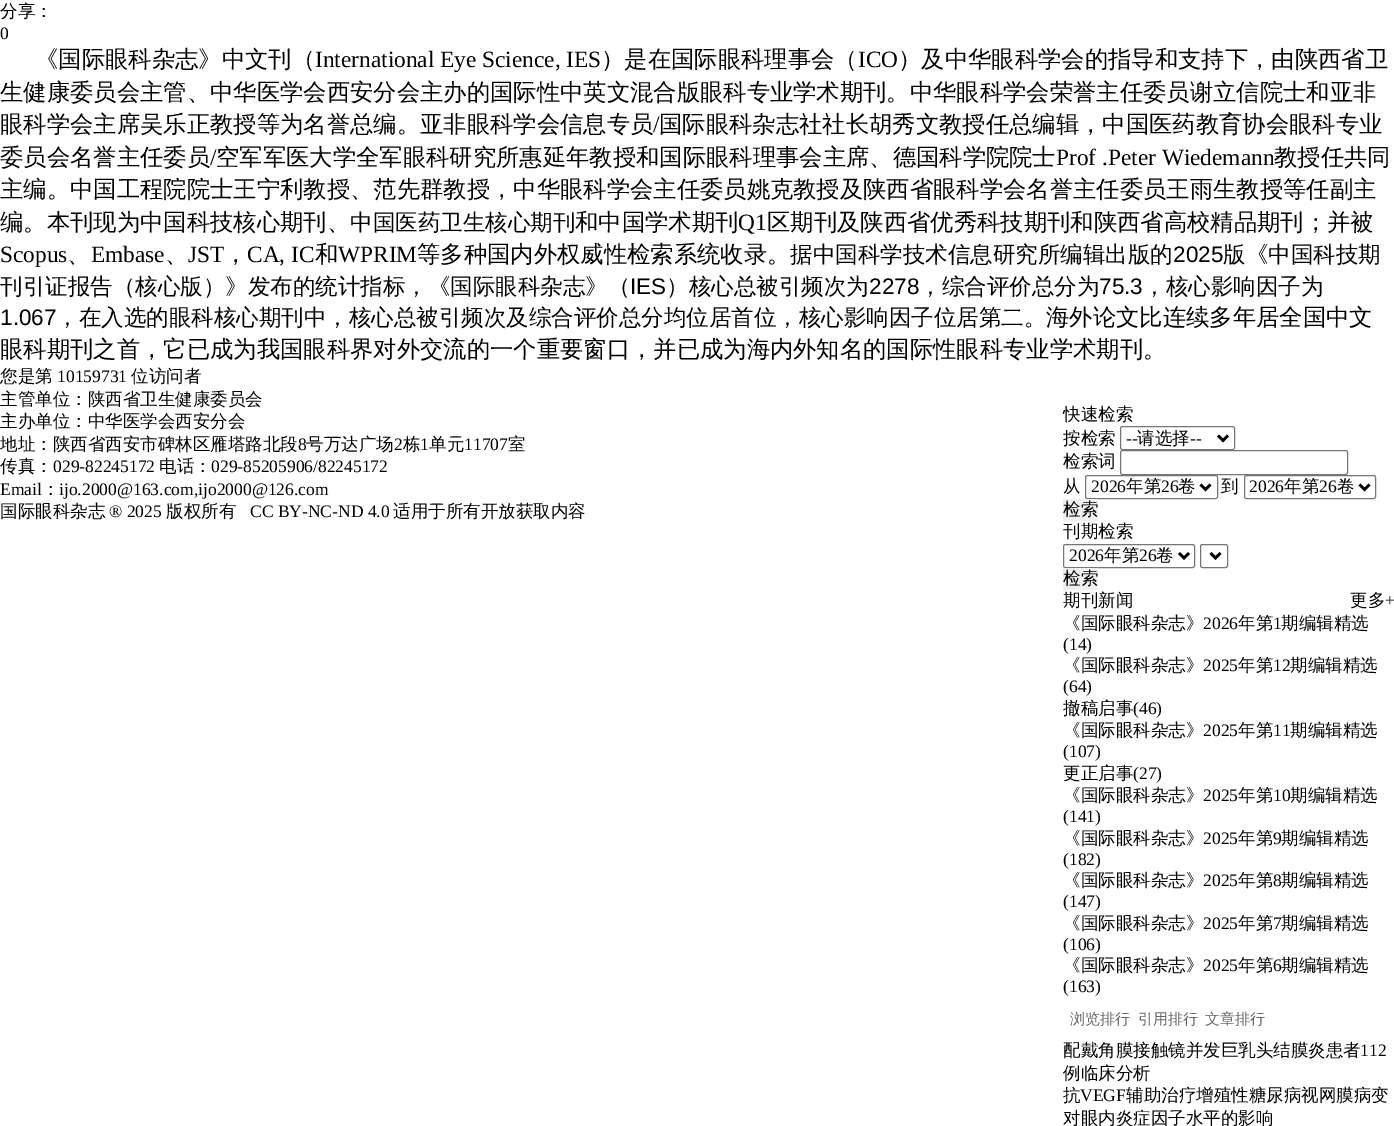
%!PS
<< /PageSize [1394 1126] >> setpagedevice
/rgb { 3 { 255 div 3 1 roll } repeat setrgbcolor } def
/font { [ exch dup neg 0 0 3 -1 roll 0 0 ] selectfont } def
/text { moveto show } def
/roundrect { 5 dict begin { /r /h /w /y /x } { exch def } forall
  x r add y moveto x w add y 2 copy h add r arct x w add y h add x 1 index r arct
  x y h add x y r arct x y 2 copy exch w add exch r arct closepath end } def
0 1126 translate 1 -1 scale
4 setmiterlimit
255 255 255 rgb
0 0 1394 1126 rectfill
118 118 118 rgb
1120.5 426.5 114 23 2 roundrect stroke
0 0 0 rgb
2.5 setlinewidth
1218 435.5 moveto 5 5 rlineto 5 -5 rlineto stroke
118 118 118 rgb
1 setlinewidth
1120.5 450.5 227 24 2 roundrect stroke
1085.5 475.5 132 23 2 roundrect stroke
0 0 0 rgb
2.5 setlinewidth
1200.5 484.5 moveto 5 5 rlineto 5 -5 rlineto stroke
118 118 118 rgb
1 setlinewidth
1244.5 475.5 131 23 2 roundrect stroke
0 0 0 rgb
2.5 setlinewidth
1359.5 484.5 moveto 5 5 rlineto 5 -5 rlineto stroke
239 239 239 rgb
1063 499 35 22 rectfill
118 118 118 rgb
1 setlinewidth
1063.5 544.5 131 23 2 roundrect stroke
0 0 0 rgb
2.5 setlinewidth
1179 553 moveto 5 5 rlineto 5 -5 rlineto stroke
118 118 118 rgb
1 setlinewidth
1200.5 544.5 27 23 2 roundrect stroke
0 0 0 rgb
2.5 setlinewidth
1210.5 553 moveto 5 5 rlineto 5 -5 rlineto stroke
239 239 239 rgb
1063 568 35 22 rectfill
/WenQuanYiZenHei-Medium 17.5 font
0 0 0 rgb
(分享：) 0 17 text
/LiberationSerif-Regular 17.5 font
(0) 0 39 text
/WenQuanYiZenHei-Medium 23.33 font
(《国际眼科杂志》中文刊（) 35 67 text
/LiberationSerif-Regular 23.33 font
(International Eye Science, IES) 315 67 text
/WenQuanYiZenHei-Medium 23.33 font
(）是在国际眼科理事会（) 601 67 text
/LiberationSerif-Regular 23.33 font
(ICO) 858 67 text
/WenQuanYiZenHei-Medium 23.33 font
(）及中华眼科学会的指导和支持下，由陕西省卫) 898 67 text
(生健康委员会主管、中华医学会西安分会主办的国际性中英文混合版眼科专业学术期刊。中华眼科学会荣誉主任委员谢立信院士和亚非) 0 100 text
(眼科学会主席吴乐正教授等为名誉总编。亚非眼科学会信息专员) 0 132 text
/LiberationSerif-Regular 23.33 font
(/) 653 132 text
/WenQuanYiZenHei-Medium 23.33 font
(国际眼科杂志社社长胡秀文教授任总编辑，中国医药教育协会眼科专业) 659 132 text
(委员会名誉主任委员) 0 165 text
/LiberationSerif-Regular 23.33 font
(/) 210 165 text
/WenQuanYiZenHei-Medium 23.33 font
(空军军医大学全军眼科研究所惠延年教授和国际眼科理事会主席、德国科学院院士) 216 165 text
/LiberationSerif-Regular 23.33 font
(Prof .Peter Wiedemann) 1056 165 text
/WenQuanYiZenHei-Medium 23.33 font
(教授任共同) 1274 165 text
(主编。中国工程院院士王宁利教授、范先群教授，中华眼科学会主任委员姚克教授及陕西省眼科学会名誉主任委员王雨生教授等任副主) 0 197 text
(编。本刊现为中国科技核心期刊、) 0 230 text
/WenQuanYiZenHei-Medium 22.5 font
(中国医药卫生核心期刊) 350 230 text
/WenQuanYiZenHei-Medium 23.33 font
(和中国学术期刊) 575 230 text
/LiberationSerif-Regular 23.33 font
(Q1) 738 230 text
/WenQuanYiZenHei-Medium 23.33 font
(区期刊及陕西省优秀科技期刊和陕西省高校精品期刊；并被) 767 230 text
/LiberationSerif-Regular 23.33 font
(Scopus) 0 262 text
/WenQuanYiZenHei-Medium 23.33 font
(、) 67 262 text
/LiberationSerif-Regular 23.33 font
(Embase) 91 262 text
/WenQuanYiZenHei-Medium 23.33 font
(、) 165 262 text
/LiberationSerif-Regular 23.33 font
(JST) 188 262 text
/WenQuanYiZenHei-Medium 23.33 font
(，) 224 262 text
/LiberationSerif-Regular 23.33 font
(CA, IC) 247 262 text
/WenQuanYiZenHei-Medium 23.33 font
(和) 315 262 text
/LiberationSerif-Regular 23.33 font
(WPRIM) 338 262 text
/WenQuanYiZenHei-Medium 23.33 font
(等多种国内外权威性检索系统收录。) 417 262 text
/WenQuanYiZenHei-Medium 22.5 font
(据中国科学技术信息研究所编辑出版的) 790 262 text
/LiberationSans-Regular 22.5 font
(2025) 1173 262 text
/WenQuanYiZenHei-Medium 22.5 font
(版《中国科技期) 1223 262 text
(刊引证报告（核心版）》发布的统计指标，《国际眼科杂志》（) 0 294 text
/LiberationSans-Regular 22.5 font
(IES) 630 294 text
/WenQuanYiZenHei-Medium 22.5 font
(）核心总被引频次为) 666 294 text
/LiberationSans-Regular 22.5 font
(2278) 869 294 text
/WenQuanYiZenHei-Medium 22.5 font
(，综合评价总分为) 919 294 text
/LiberationSans-Regular 22.5 font
(75.3) 1099 294 text
/WenQuanYiZenHei-Medium 22.5 font
(，核心影响因子为) 1143 294 text
/LiberationSans-Regular 22.5 font
(1.067) 0 325 text
/WenQuanYiZenHei-Medium 22.5 font
(，在入选的眼科核心期刊中，核心总被引频次及综合评价总分均位居首位，核心影响因子位居第二。) 56 325 text
/WenQuanYiZenHei-Medium 23.33 font
(海外论文比连续多年居全国中文) 1046 325 text
(眼科期刊之首，它已成为我国眼科界对外交流的一个重要窗口，并已成为海内外知名的国际性眼科专业学术期刊。) 0 357 text
/WenQuanYiZenHei-Medium 17.5 font
(快速检索) 1063 420 text
(按检索) 1063 444 text
/LiberationSerif-Regular 17.5 font
(--) 1126 444 text
/WenQuanYiZenHei-Medium 17.5 font
(请选择) 1137 444 text
/LiberationSerif-Regular 17.5 font
(--) 1190 444 text
/WenQuanYiZenHei-Medium 17.5 font
(检索词) 1063 467 text
(从) 1063 492 text
/LiberationSerif-Regular 17.5 font
(2026) 1091 492 text
/WenQuanYiZenHei-Medium 17.5 font
(年第) 1126 492 text
/LiberationSerif-Regular 17.5 font
(26) 1161 492 text
/WenQuanYiZenHei-Medium 17.5 font
(卷) 1178 492 text
(到) 1221 492 text
/LiberationSerif-Regular 17.5 font
(2026) 1249 492 text
/WenQuanYiZenHei-Medium 17.5 font
(年第) 1284 492 text
/LiberationSerif-Regular 17.5 font
(26) 1319 492 text
/WenQuanYiZenHei-Medium 17.5 font
(卷) 1337 492 text
(检索) 1063 515 text
(刊期检索) 1063 537 text
/LiberationSerif-Regular 17.5 font
(2026) 1069 561 text
/WenQuanYiZenHei-Medium 17.5 font
(年第) 1104 561 text
/LiberationSerif-Regular 17.5 font
(26) 1139 561 text
/WenQuanYiZenHei-Medium 17.5 font
(卷) 1156 561 text
(检索) 1063 584 text
(期刊新闻) 1063 606 text
(更多) 1350 606 text
/LiberationSerif-Regular 17.5 font
(+) 1385 606 text
/WenQuanYiZenHei-Medium 17.5 font
(《国际眼科杂志》) 1063 629 text
/LiberationSerif-Regular 17.5 font
(2026) 1203 629 text
/WenQuanYiZenHei-Medium 17.5 font
(年第) 1238 629 text
/LiberationSerif-Regular 17.5 font
(1) 1273 629 text
/WenQuanYiZenHei-Medium 17.5 font
(期编辑精选) 1281 629 text
/LiberationSerif-Regular 17.5 font
(\(14\)) 1063 650 text
/WenQuanYiZenHei-Medium 17.5 font
(《国际眼科杂志》) 1063 671 text
/LiberationSerif-Regular 17.5 font
(2025) 1203 671 text
/WenQuanYiZenHei-Medium 17.5 font
(年第) 1238 671 text
/LiberationSerif-Regular 17.5 font
(12) 1273 671 text
/WenQuanYiZenHei-Medium 17.5 font
(期编辑精选) 1290 671 text
/LiberationSerif-Regular 17.5 font
(\(64\)) 1063 692 text
/WenQuanYiZenHei-Medium 17.5 font
(撤稿启事) 1063 714 text
/LiberationSerif-Regular 17.5 font
(\(46\)) 1133 714 text
/WenQuanYiZenHei-Medium 17.5 font
(《国际眼科杂志》) 1063 736 text
/LiberationSerif-Regular 17.5 font
(2025) 1203 736 text
/WenQuanYiZenHei-Medium 17.5 font
(年第) 1238 736 text
/LiberationSerif-Regular 17.5 font
(11) 1273 736 text
/WenQuanYiZenHei-Medium 17.5 font
(期编辑精选) 1290 736 text
/LiberationSerif-Regular 17.5 font
(\(107\)) 1063 757 text
/WenQuanYiZenHei-Medium 17.5 font
(更正启事) 1063 779 text
/LiberationSerif-Regular 17.5 font
(\(27\)) 1133 779 text
/WenQuanYiZenHei-Medium 17.5 font
(《国际眼科杂志》) 1063 801 text
/LiberationSerif-Regular 17.5 font
(2025) 1203 801 text
/WenQuanYiZenHei-Medium 17.5 font
(年第) 1238 801 text
/LiberationSerif-Regular 17.5 font
(10) 1273 801 text
/WenQuanYiZenHei-Medium 17.5 font
(期编辑精选) 1290 801 text
/LiberationSerif-Regular 17.5 font
(\(141\)) 1063 822 text
/WenQuanYiZenHei-Medium 17.5 font
(《国际眼科杂志》) 1063 844 text
/LiberationSerif-Regular 17.5 font
(2025) 1203 844 text
/WenQuanYiZenHei-Medium 17.5 font
(年第) 1238 844 text
/LiberationSerif-Regular 17.5 font
(9) 1273 844 text
/WenQuanYiZenHei-Medium 17.5 font
(期编辑精选) 1281 844 text
/LiberationSerif-Regular 17.5 font
(\(182\)) 1063 865 text
/WenQuanYiZenHei-Medium 17.5 font
(《国际眼科杂志》) 1063 886 text
/LiberationSerif-Regular 17.5 font
(2025) 1203 886 text
/WenQuanYiZenHei-Medium 17.5 font
(年第) 1238 886 text
/LiberationSerif-Regular 17.5 font
(8) 1273 886 text
/WenQuanYiZenHei-Medium 17.5 font
(期编辑精选) 1281 886 text
/LiberationSerif-Regular 17.5 font
(\(147\)) 1063 907 text
/WenQuanYiZenHei-Medium 17.5 font
(《国际眼科杂志》) 1063 929 text
/LiberationSerif-Regular 17.5 font
(2025) 1203 929 text
/WenQuanYiZenHei-Medium 17.5 font
(年第) 1238 929 text
/LiberationSerif-Regular 17.5 font
(7) 1273 929 text
/WenQuanYiZenHei-Medium 17.5 font
(期编辑精选) 1281 929 text
/LiberationSerif-Regular 17.5 font
(\(106\)) 1063 950 text
/WenQuanYiZenHei-Medium 17.5 font
(《国际眼科杂志》) 1063 971 text
/LiberationSerif-Regular 17.5 font
(2025) 1203 971 text
/WenQuanYiZenHei-Medium 17.5 font
(年第) 1238 971 text
/LiberationSerif-Regular 17.5 font
(6) 1273 971 text
/WenQuanYiZenHei-Medium 17.5 font
(期编辑精选) 1281 971 text
/LiberationSerif-Regular 17.5 font
(\(163\)) 1063 992 text
/WenQuanYiZenHei-Medium 15 font
102 102 102 rgb
(浏览排行) 1070 1024 text
(引用排行) 1138 1024 text
(文章排行) 1205 1024 text
/WenQuanYiZenHei-Medium 17.5 font
0 0 0 rgb
(配戴角膜接触镜并发巨乳头结膜炎患者) 1063 1056 text
/LiberationSerif-Regular 17.5 font
(112) 1360 1056 text
/WenQuanYiZenHei-Medium 17.5 font
(例临床分析) 1063 1079 text
(抗) 1063 1101 text
/LiberationSerif-Regular 17.5 font
(VEGF) 1080 1101 text
/WenQuanYiZenHei-Medium 17.5 font
(辅助治疗增殖性糖尿病视网膜病变) 1126 1101 text
(对眼内炎症因子水平的影响) 1063 1124 text
(您是第) 0 382 text
/LiberationSerif-Regular 17.5 font
(10159731) 57 382 text
/WenQuanYiZenHei-Medium 17.5 font
(位访问者) 131 382 text
(主管单位：陕西省卫生健康委员会) 0 405 text
(主办单位：中华医学会西安分会) 0 427 text
(地址：陕西省西安市碑林区雁塔路北段) 0 450 text
/LiberationSerif-Regular 17.5 font
(8) 298 450 text
/WenQuanYiZenHei-Medium 17.5 font
(号万达广场) 306 450 text
/LiberationSerif-Regular 17.5 font
(2) 394 450 text
/WenQuanYiZenHei-Medium 17.5 font
(栋) 403 450 text
/LiberationSerif-Regular 17.5 font
(1) 420 450 text
/WenQuanYiZenHei-Medium 17.5 font
(单元) 429 450 text
/LiberationSerif-Regular 17.5 font
(11707) 464 450 text
/WenQuanYiZenHei-Medium 17.5 font
(室) 508 450 text
(传真：) 0 472 text
/LiberationSerif-Regular 17.5 font
(029-82245172) 53 472 text
/WenQuanYiZenHei-Medium 17.5 font
(电话：) 159 472 text
/LiberationSerif-Regular 17.5 font
(029-85205906/82245172) 211 472 text
(Email) 0 495 text
/WenQuanYiZenHei-Medium 17.5 font
(：) 42 495 text
/LiberationSerif-Regular 17.5 font
(ijo.2000@163.com,ijo2000@126.com) 59 495 text
/WenQuanYiZenHei-Medium 17.5 font
(国际眼科杂志) 0 517 text
/LiberationSerif-Regular 17.5 font
(® 2025) 109 517 text
/WenQuanYiZenHei-Medium 17.5 font
(版权所有) 166 517 text
/LiberationSerif-Regular 17.5 font
(CC BY-NC-ND 4.0) 250 517 text
/WenQuanYiZenHei-Medium 17.5 font
(适用于所有开放获取内容) 393 517 text
showpage
